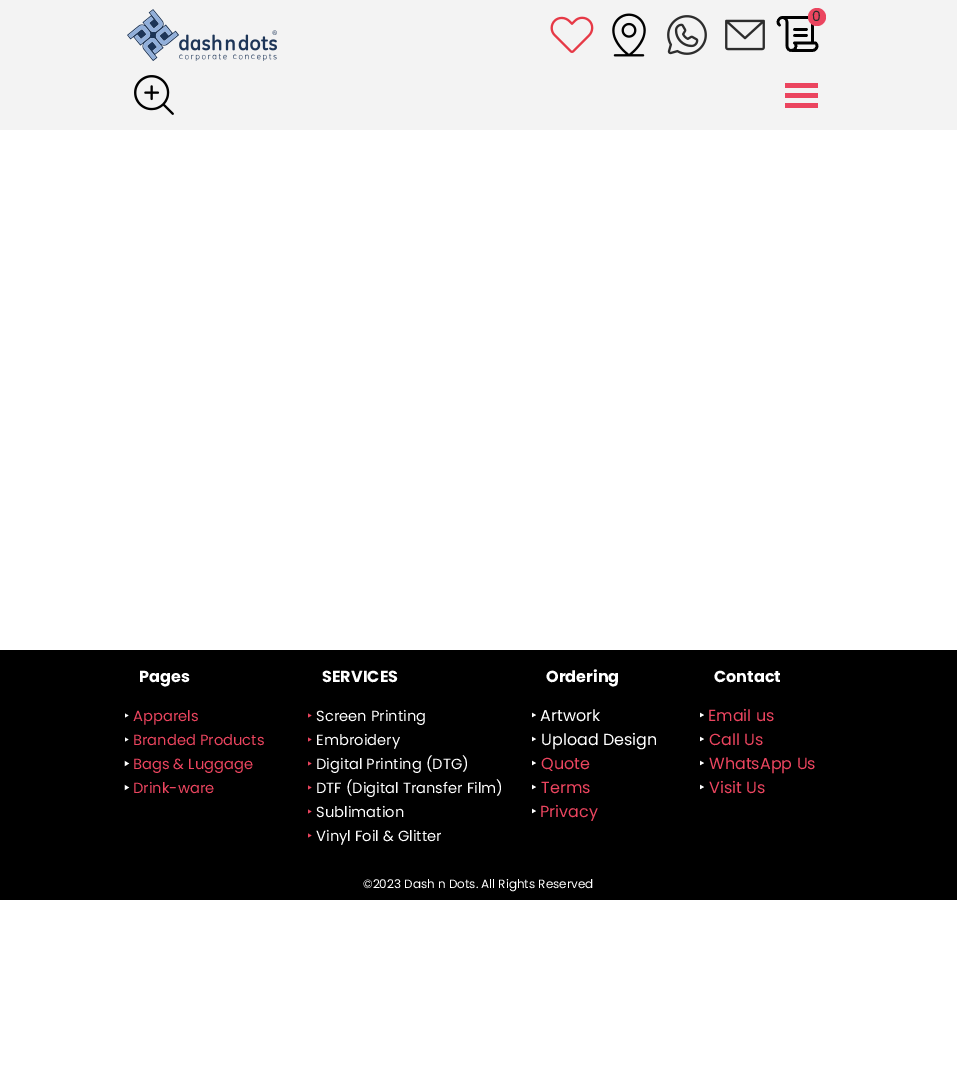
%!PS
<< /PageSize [957 1091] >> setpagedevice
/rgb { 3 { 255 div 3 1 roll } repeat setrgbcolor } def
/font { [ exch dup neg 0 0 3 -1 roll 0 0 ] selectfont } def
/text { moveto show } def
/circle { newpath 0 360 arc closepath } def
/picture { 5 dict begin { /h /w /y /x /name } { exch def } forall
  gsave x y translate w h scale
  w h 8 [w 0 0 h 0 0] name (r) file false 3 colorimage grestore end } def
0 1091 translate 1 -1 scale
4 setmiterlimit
255 255 255 rgb
0 0 957 1091 rectfill
243 243 243 rgb
0 0 957 130 rectfill
(img_01.rgb) 127 9 150 52 picture
(img_02.rgb) 550 16 44 37 picture
(img_03.rgb) 612 13 34 44 picture
(img_04.rgb) 667 15 40 40 picture
(img_05.rgb) 725 19 40 32 picture
(img_06.rgb) 776 16 43 36 picture
235 69 95 rgb
817 17 9 circle fill
(img_07.rgb) 134 75 40 40 picture
785 83 33 5 rectfill
785 93 33 5 rectfill
785 103 33 5 rectfill
0 0 0 rgb
0 650 957 250 rectfill
/Poppins-Regular 14 font
45 45 45 rgb
(0) 812 21 text
/Poppins-Bold 16 font
255 255 255 rgb
(Pages) 139 682 text
/NotoSans-Regular 14.7 font
(‣) 124 721 text
/Poppins-Regular 14.7 font
235 69 95 rgb
(Apparels) 133 721 text
/NotoSans-Regular 14.7 font
255 255 255 rgb
(‣) 124 745 text
/Poppins-Regular 14.7 font
235 69 95 rgb
(Branded Products) 133 745 text
/NotoSans-Bold 14.7 font
255 255 255 rgb
(‣) 124 769 text
/Poppins-Regular 14.7 font
235 69 95 rgb
(Bags & Luggage) 133 769 text
/NotoSans-Bold 14.7 font
255 255 255 rgb
(‣) 124 793 text
/Poppins-Regular 14.7 font
235 69 95 rgb
(Drink-ware) 133 793 text
/Poppins-Bold 16 font
255 255 255 rgb
(SERVICES) 322 682 text
/NotoSans-Regular 14.7 font
235 69 95 rgb
(‣) 307 721 text
/Poppins-Regular 14.7 font
255 255 255 rgb
(Screen Printing) 316 721 text
/NotoSans-Regular 14.7 font
235 69 95 rgb
(‣) 307 745 text
/Poppins-Regular 14.7 font
255 255 255 rgb
(Embroidery) 316 745 text
/NotoSans-Regular 14.7 font
235 69 95 rgb
(‣) 307 769 text
/Poppins-Regular 14.7 font
255 255 255 rgb
(Digital Printing \(DTG\)) 316 769 text
/NotoSans-Regular 14.7 font
235 69 95 rgb
(‣) 307 793 text
/Poppins-Regular 14.7 font
255 255 255 rgb
(DTF \(Digital Transfer Film\)) 316 793 text
/NotoSans-Regular 14.7 font
235 69 95 rgb
(‣) 307 817 text
/Poppins-Regular 14.7 font
255 255 255 rgb
(Sublimation) 316 817 text
/NotoSans-Regular 14.7 font
235 69 95 rgb
(‣) 307 841 text
/Poppins-Regular 14.7 font
255 255 255 rgb
(Vinyl Foil & Glitter) 316 841 text
/Poppins-Bold 16 font
(Ordering) 546 682 text
/NotoSans-Regular 16 font
(‣) 531 721 text
/Poppins-Regular 16 font
(Artwork) 540 721 text
/NotoSans-Regular 16 font
(‣) 531 745 text
/Poppins-Regular 16 font
(Upload Design) 541 745 text
/NotoSans-Regular 16 font
(‣) 531 769 text
/Poppins-Regular 16 font
235 69 95 rgb
(Quote) 541 769 text
/NotoSans-Regular 16 font
255 255 255 rgb
(‣) 531 793 text
/Poppins-Regular 16 font
235 69 95 rgb
(Terms) 541 793 text
/NotoSans-Regular 16 font
255 255 255 rgb
(‣) 531 817 text
/Poppins-Regular 16 font
235 69 95 rgb
(Privacy) 540 817 text
/Poppins-Bold 16 font
255 255 255 rgb
(Contact) 714 682 text
/NotoSans-Regular 16 font
(‣) 699 721 text
/Poppins-Regular 16 font
235 69 95 rgb
(Email us) 708 721 text
/NotoSans-Regular 16 font
255 255 255 rgb
(‣) 699 745 text
/Poppins-Regular 16 font
235 69 95 rgb
(Call Us) 709 745 text
/NotoSans-Regular 16 font
255 255 255 rgb
(‣) 699 769 text
/Poppins-Regular 16 font
235 69 95 rgb
(WhatsApp Us) 709 769 text
/NotoSans-Regular 16 font
255 255 255 rgb
(‣) 699 793 text
/Poppins-Regular 16 font
235 69 95 rgb
(Visit Us) 709 793 text
/Poppins-Regular 12 font
255 255 255 rgb
(©2023 Dash n Dots. All Rights Reserved) 363 888 text
showpage
